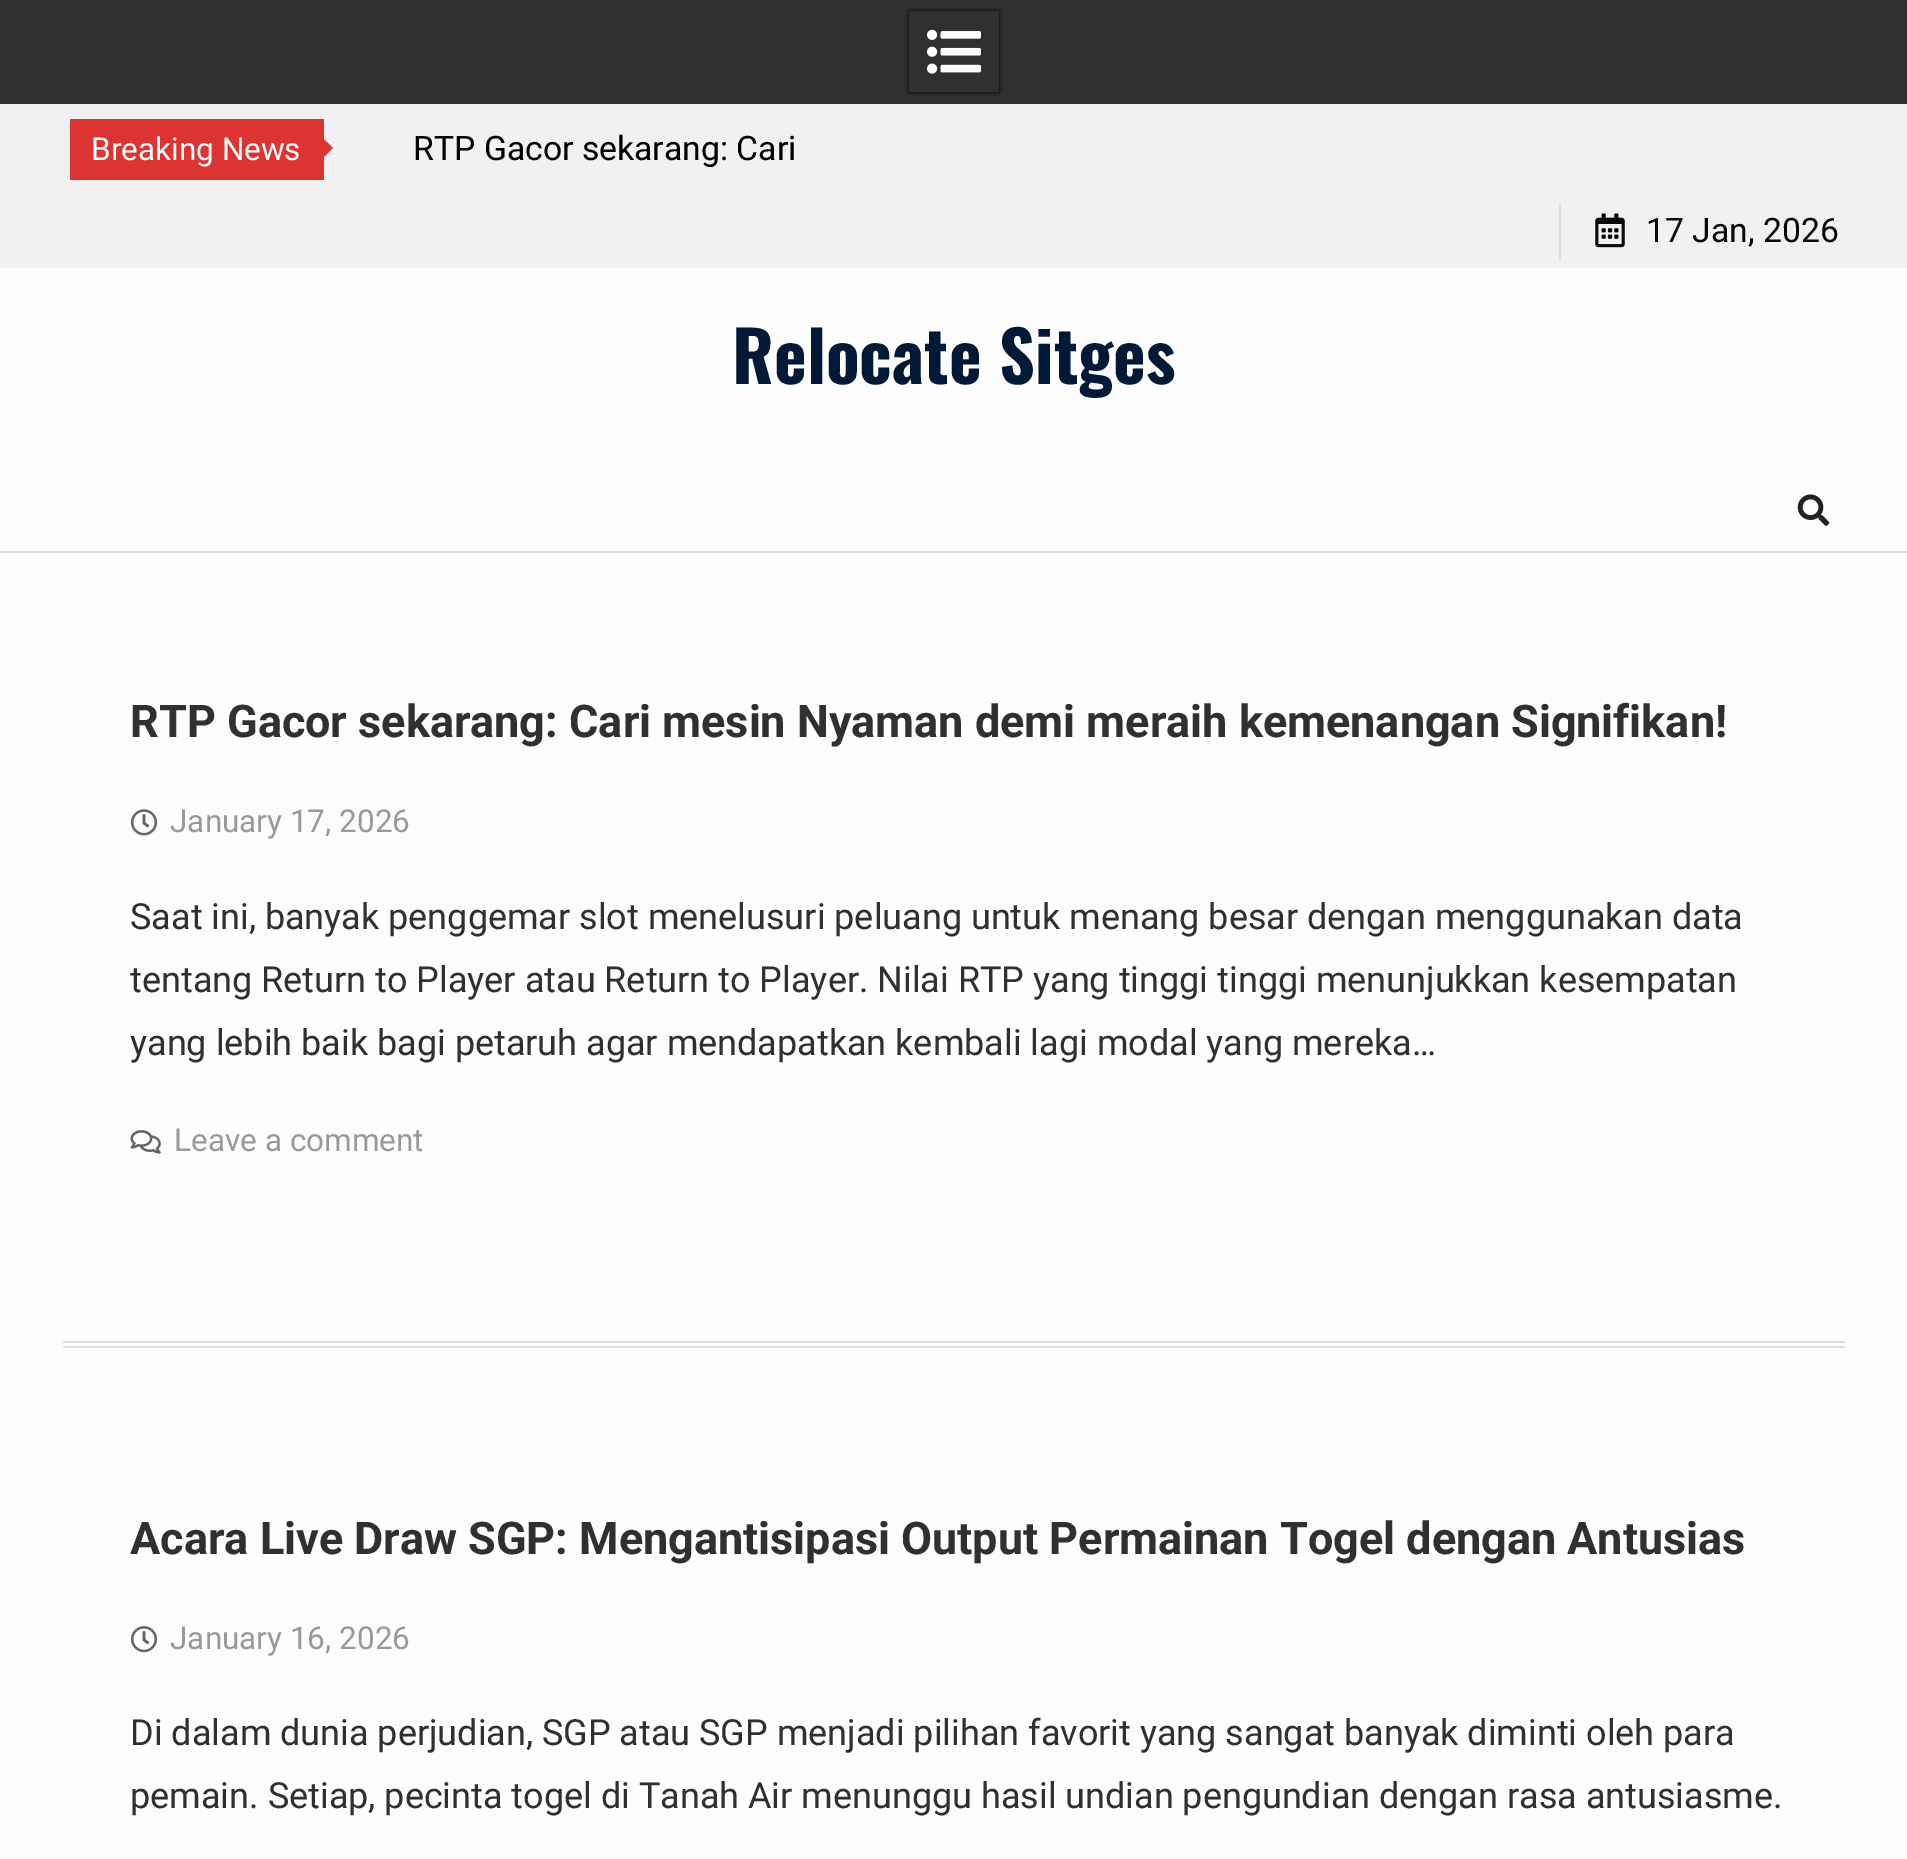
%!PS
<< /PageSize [1907 1859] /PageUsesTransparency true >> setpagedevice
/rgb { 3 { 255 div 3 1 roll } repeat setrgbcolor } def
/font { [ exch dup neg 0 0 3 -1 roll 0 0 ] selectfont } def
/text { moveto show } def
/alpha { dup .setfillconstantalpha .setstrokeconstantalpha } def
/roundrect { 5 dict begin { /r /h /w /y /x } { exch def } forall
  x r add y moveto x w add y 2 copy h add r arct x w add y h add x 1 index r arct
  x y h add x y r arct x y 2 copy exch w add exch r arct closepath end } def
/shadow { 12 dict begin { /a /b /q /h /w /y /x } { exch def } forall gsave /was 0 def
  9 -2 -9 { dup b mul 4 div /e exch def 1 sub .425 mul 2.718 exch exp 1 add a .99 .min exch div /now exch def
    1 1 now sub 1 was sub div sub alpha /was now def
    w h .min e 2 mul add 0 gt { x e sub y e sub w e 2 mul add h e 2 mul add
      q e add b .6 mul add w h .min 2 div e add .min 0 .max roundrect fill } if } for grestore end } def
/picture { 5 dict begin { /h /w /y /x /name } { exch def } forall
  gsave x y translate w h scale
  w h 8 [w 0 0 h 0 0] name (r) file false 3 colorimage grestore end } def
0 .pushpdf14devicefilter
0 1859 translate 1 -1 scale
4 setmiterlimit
253 253 253 rgb
0 0 1907 1859 rectfill
241 241 241 rgb
0 104 1907 164 rectfill
221 51 51 rgb
70 119 254 61 rectfill
310 171 moveto 0 -45 rlineto 23 22 rlineto closepath fill
224 224 224 rgb
1559 203 2 58 rectfill
(img_01.rgb) 1595 213 30 35 picture
48 48 48 rgb
0 0 1907 104 rectfill
gsave
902 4 moveto 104 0 rlineto 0 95 rlineto -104 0 rlineto closepath 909 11 moveto 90 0 rlineto 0 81 rlineto -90 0 rlineto closepath eoclip newpath
0 0 0 rgb
909 11 90 81 0 2 1 shadow
grestore
(img_02.rgb) 927 29 54 45 picture
221 221 221 rgb
0 551 1907 2 rectfill
(img_03.rgb) 1797 494 33 32 picture
63 1341 1782 2 rectfill
63 1346 1782 2 rectfill
(img_04.rgb) 130 809 28 27 picture
(img_05.rgb) 130 1130 31 24 picture
(img_06.rgb) 130 1626 28 27 picture
/Roboto-Regular 31.5 font
253 253 253 rgb
(Breaking News) 91 160 text
/Roboto-Regular 33.75 font
0 0 0 rgb
(RTP Gacor sekarang: Cari) 413 160 text
10 10 10 rgb
(17 Jan, 2026) 1646 242 text
/Oswald-Bold 69.75 font
0 25 54 rgb
(Relocate Sitges) 732 384 text
/Roboto-Bold 45 font
48 48 48 rgb
(RTP Gacor sekarang: Cari mesin Nyaman demi meraih kemenangan Signifikan!) 130 737 text
/Roboto-Regular 31.5 font
153 153 153 rgb
(January 17, 2026) 170 832 text
/Roboto-Regular 36 font
48 48 48 rgb
(Saat ini, banyak penggemar slot menelusuri peluang untuk menang besar dengan menggunakan data) 130 929 text
(tentang Return to Player atau Return to Player. Nilai RTP yang tinggi tinggi menunjukkan kesempatan) 130 992 text
(yang lebih baik bagi petaruh agar mendapatkan kembali lagi modal yang mereka…) 130 1055 text
/Roboto-Regular 31.5 font
153 153 153 rgb
(Leave a comment) 174 1151 text
/Roboto-Bold 45 font
48 48 48 rgb
(Acara Live Draw SGP: Mengantisipasi Output Permainan Togel dengan Antusias) 130 1554 text
/Roboto-Regular 31.5 font
153 153 153 rgb
(January 16, 2026) 170 1649 text
/Roboto-Regular 36 font
48 48 48 rgb
(Di dalam dunia perjudian, SGP atau SGP menjadi pilihan favorit yang sangat banyak diminti oleh para) 130 1745 text
(pemain. Setiap, pecinta togel di Tanah Air menunggu hasil undian pengundian dengan rasa antusiasme.) 130 1808 text
.poppdf14devicefilter showpage
